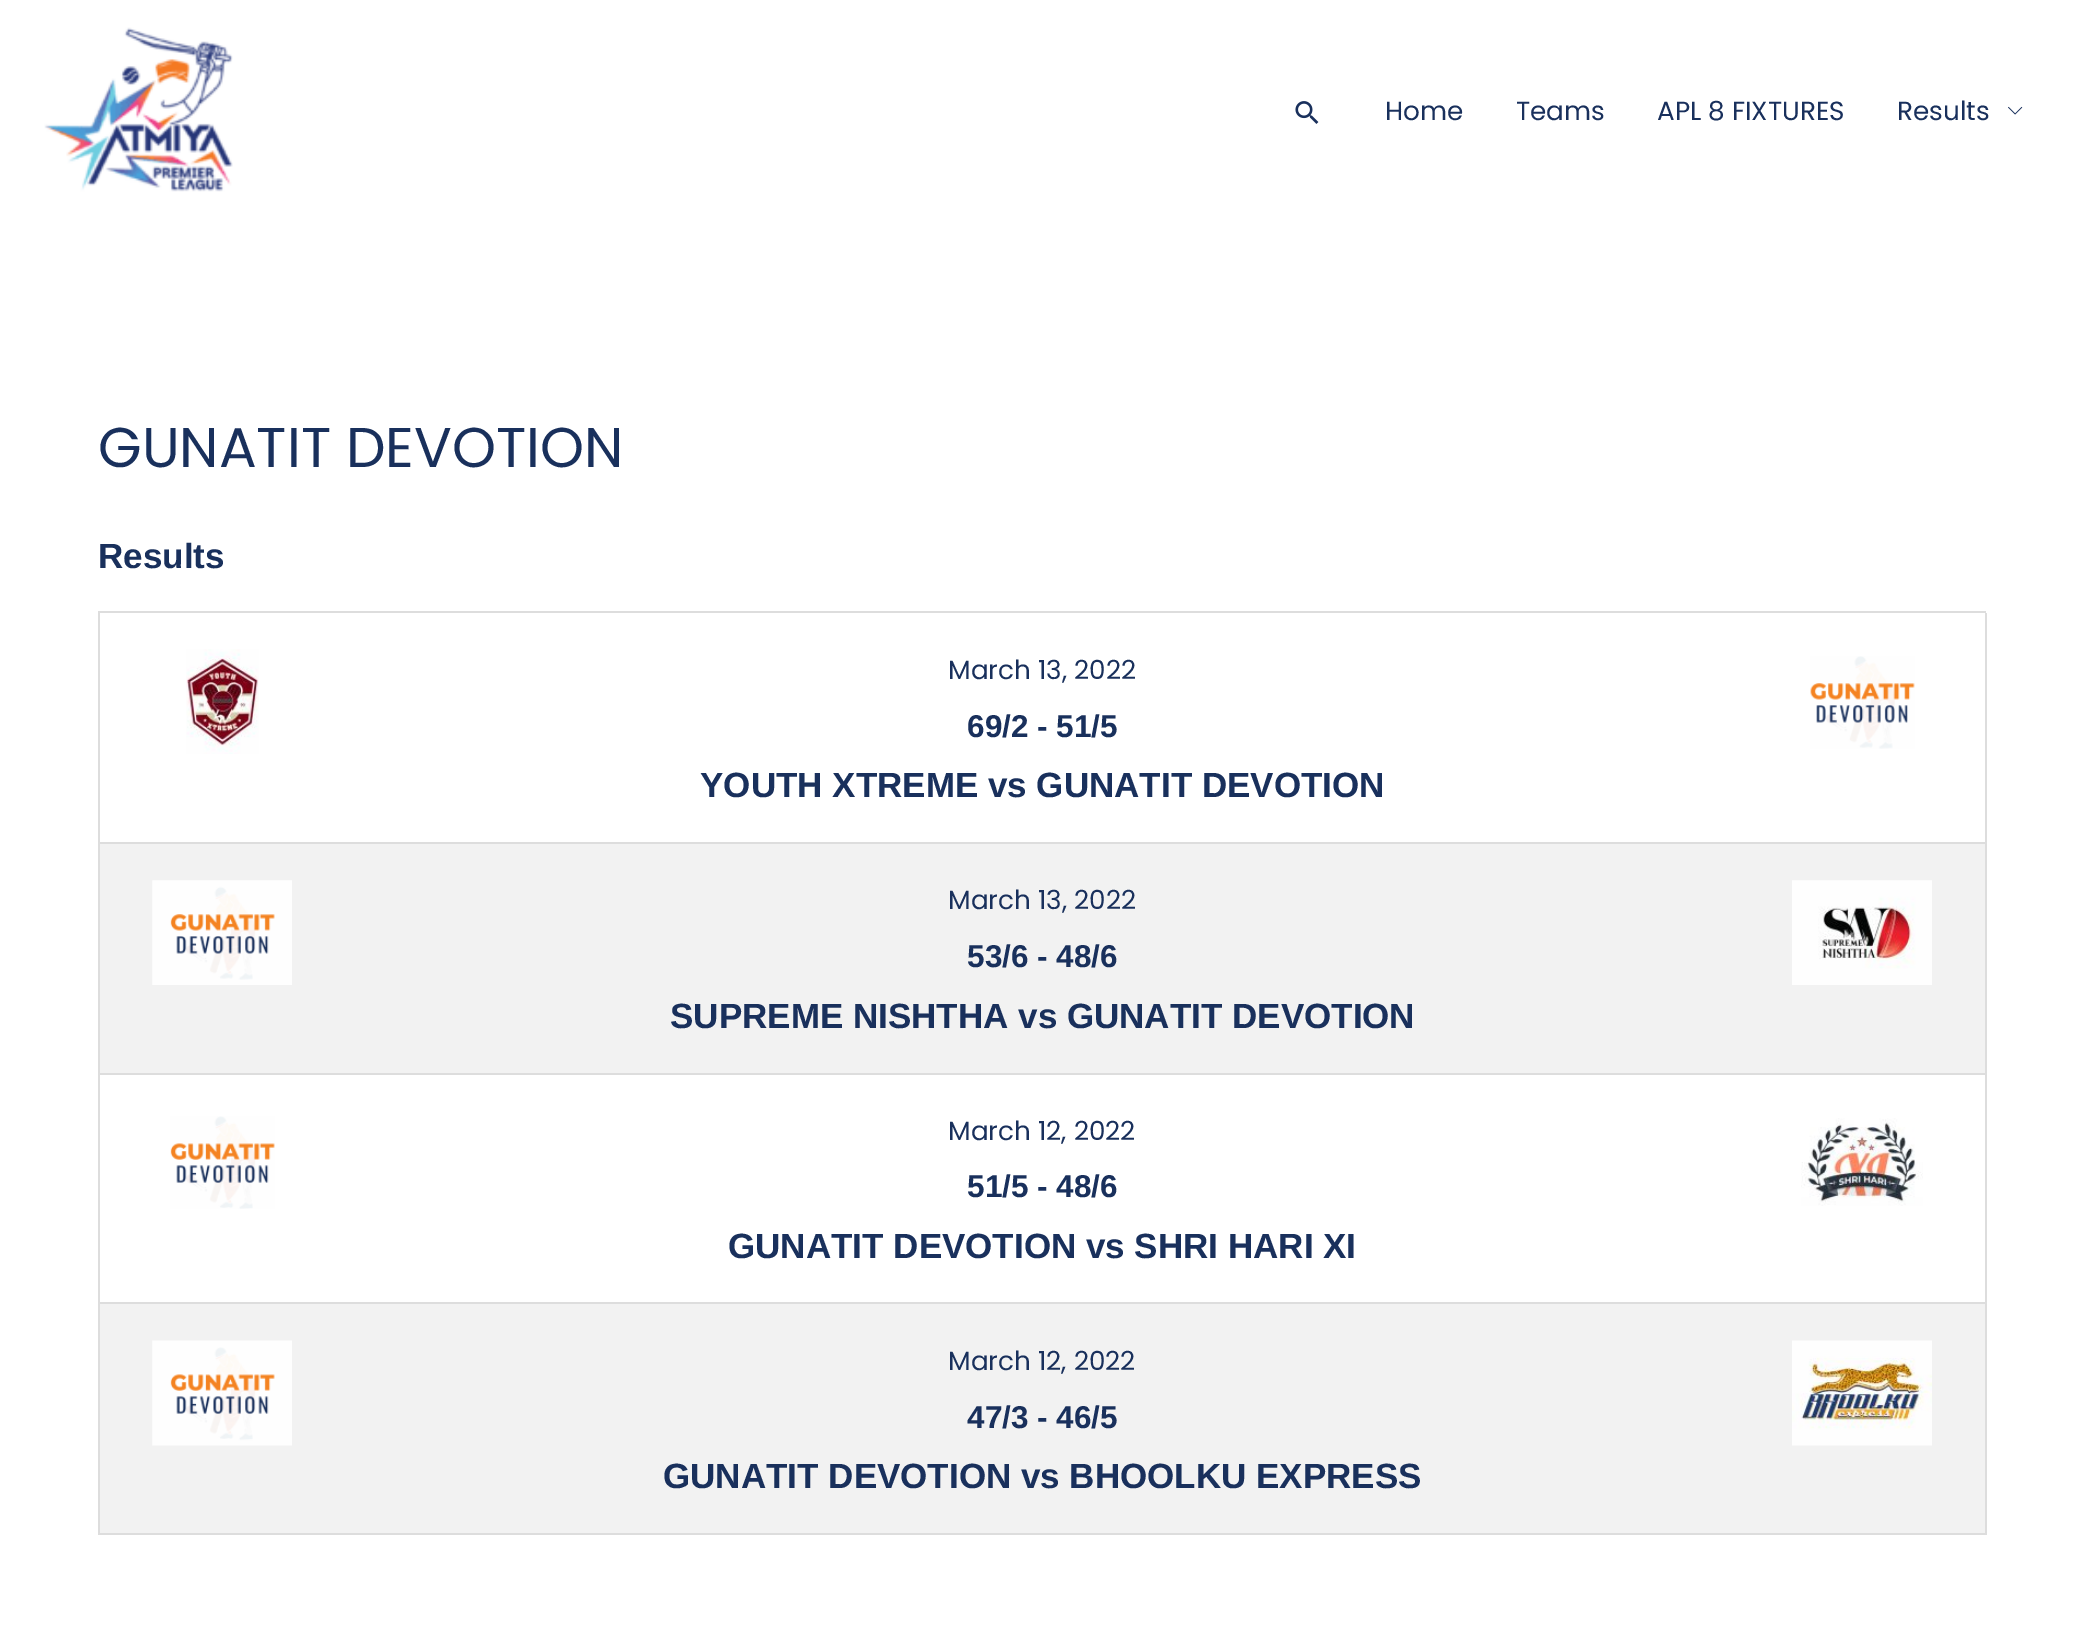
%!PS
<< /PageSize [2084 1631] >> setpagedevice
/rgb { 3 { 255 div 3 1 roll } repeat setrgbcolor } def
/font { [ exch dup neg 0 0 3 -1 roll 0 0 ] selectfont } def
/text { moveto show } def
/picture { 5 dict begin { /h /w /y /x /name } { exch def } forall
  gsave x y translate w h scale
  w h 8 [w 0 0 h 0 0] name (r) file false 3 colorimage grestore end } def
0 1631 translate 1 -1 scale
4 setmiterlimit
255 255 255 rgb
0 0 2084 1631 rectfill
(img_01.rgb) 44 27 189 165 picture
(img_02.rgb) 1295 101 24 23 picture
(img_03.rgb) 2008 106 15 9 picture
221 221 221 rgb
98 611 1888 2 rectfill
98 611 2 924 rectfill
1985 613 2 922 rectfill
100 842 1886 2 rectfill
(img_04.rgb) 186 649 73 105 picture
(img_05.rgb) 1810 656 105 93 picture
242 242 242 rgb
100 844 1885 229 rectfill
221 221 221 rgb
100 1073 1886 2 rectfill
(img_06.rgb) 152 880 140 105 picture
(img_07.rgb) 1792 880 140 105 picture
100 1302 1886 2 rectfill
(img_08.rgb) 170 1116 105 93 picture
(img_09.rgb) 1801 1118 122 88 picture
242 242 242 rgb
100 1304 1885 229 rectfill
221 221 221 rgb
100 1533 1886 2 rectfill
(img_10.rgb) 152 1340 140 106 picture
(img_11.rgb) 1792 1340 140 106 picture
/Poppins-Regular 26.25 font
25 48 92 rgb
(Home) 1385 120 text
(Teams) 1516 120 text
(APL 8 FIXTURES) 1657 120 text
(Results) 1897 120 text
/Poppins-Regular 56 font
(GUNATIT DEVOTION) 98 467 text
/LiberationSans-Bold 35 font
(Results) 98 568 text
/Poppins-Regular 26.25 font
(March 13, 2022) 948 679 text
/LiberationSans-Bold 31.5 font
(69/2 - 51/5) 967 737 text
/LiberationSans-Bold 35 font
(YOUTH XTREME vs GUNATIT DEVOTION) 700 797 text
/Poppins-Regular 26.25 font
(March 13, 2022) 948 909 text
/LiberationSans-Bold 31.5 font
(53/6 - 48/6) 967 967 text
/LiberationSans-Bold 35 font
(SUPREME NISHTHA vs GUNATIT DEVOTION) 670 1028 text
/Poppins-Regular 26.25 font
(March 12, 2022) 948 1140 text
/LiberationSans-Bold 31.5 font
(51/5 - 48/6) 967 1197 text
/LiberationSans-Bold 35 font
(GUNATIT DEVOTION vs SHRI HARI XI) 728 1258 text
/Poppins-Regular 26.25 font
(March 12, 2022) 948 1370 text
/LiberationSans-Bold 31.5 font
(47/3 - 46/5) 967 1428 text
/LiberationSans-Bold 35 font
(GUNATIT DEVOTION vs BHOOLKU EXPRESS) 663 1488 text
showpage
